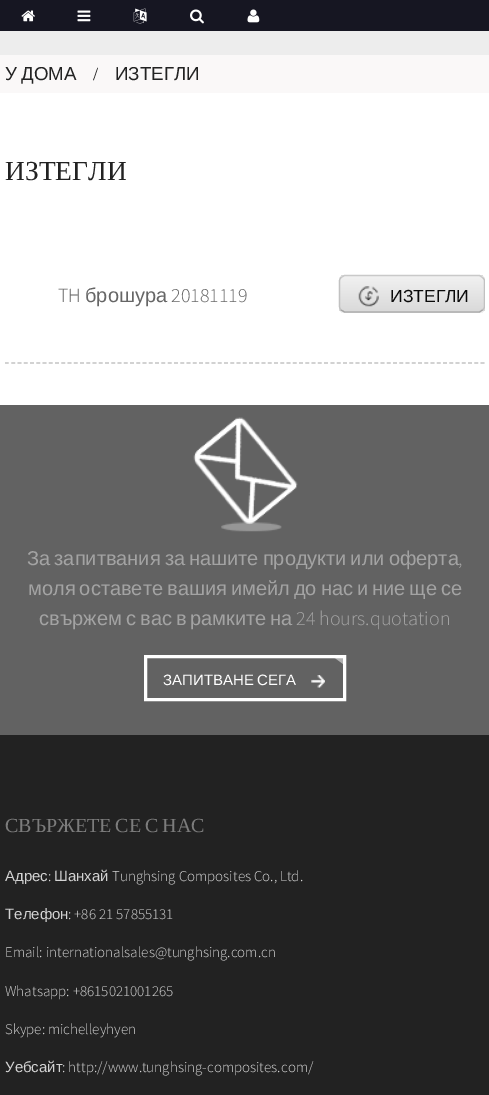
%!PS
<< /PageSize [489 1095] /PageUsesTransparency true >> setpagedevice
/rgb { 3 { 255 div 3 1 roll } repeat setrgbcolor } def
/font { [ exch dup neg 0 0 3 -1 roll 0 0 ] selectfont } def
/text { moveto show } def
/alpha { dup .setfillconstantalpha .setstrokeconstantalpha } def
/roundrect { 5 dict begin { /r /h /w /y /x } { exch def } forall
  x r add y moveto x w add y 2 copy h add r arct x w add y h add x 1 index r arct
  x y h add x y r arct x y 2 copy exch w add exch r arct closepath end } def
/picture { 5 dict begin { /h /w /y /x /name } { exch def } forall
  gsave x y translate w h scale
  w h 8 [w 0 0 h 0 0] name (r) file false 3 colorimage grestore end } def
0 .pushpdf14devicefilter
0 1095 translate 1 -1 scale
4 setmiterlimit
255 255 255 rgb
0 0 489 1095 rectfill
22 22 34 rgb
0 0 489 31 rectfill
(img_01.rgb) 21 10 14 12 picture
(img_02.rgb) 77 10 14 12 picture
(img_03.rgb) 133 8 14 16 picture
(img_04.rgb) 190 9 14 15 picture
(img_05.rgb) 247 9 13 14 picture
237 237 237 rgb
0 31 489 24 rectfill
250 248 248 rgb
0 55 489 38 rectfill
gsave
339 275 146 38 6 roundrect clip newpath
gsave 339 275 moveto 146 0 rlineto 0 1 rlineto -146 0 rlineto closepath clip newpath
<< /ShadingType 2 /ColorSpace /DeviceRGB /Coords [340 241 340 276] /Extend [true true] /Function << /FunctionType 2 /Domain [0 1] /C0 [0.945 0.945 0.945] /C1 [0.855 0.855 0.855] /N 1 >> >> shfill grestore
gsave 339 276 moveto 146 0 rlineto 0 35 rlineto -146 0 rlineto closepath clip newpath
<< /ShadingType 2 /ColorSpace /DeviceRGB /Coords [340 276 340 311] /Extend [true true] /Function << /FunctionType 2 /Domain [0 1] /C0 [0.945 0.945 0.945] /C1 [0.855 0.855 0.855] /N 1 >> >> shfill grestore
gsave 339 311 moveto 146 0 rlineto 0 2 rlineto -146 0 rlineto closepath clip newpath
<< /ShadingType 2 /ColorSpace /DeviceRGB /Coords [340 311 340 346] /Extend [true true] /Function << /FunctionType 2 /Domain [0 1] /C0 [0.945 0.945 0.945] /C1 [0.855 0.855 0.855] /N 1 >> >> shfill grestore
grestore
201 201 201 rgb
1.2 setlinewidth
341 277.5 moveto 3.5 -2 rlineto 135 0 rlineto 3 2 rlineto stroke
gsave
5 238 480 87 rectclip
193 193 193 rgb
482.5 277.5 moveto 1.5 1 2 2.5 2 3.5 rcurveto 0 25 rlineto 0 1.5 -0.5 3 -2 4 rcurveto stroke
grestore
165 165 165 rgb
482.5 310 moveto -3 2 rlineto -135 0 rlineto -3.5 -2 rlineto stroke
193 193 193 rgb
341 310 moveto -1 -1 -1.5 -2.5 -1.5 -4 rcurveto 0 -25 rlineto 0 -1 0.5 -2.5 1.5 -3.5 rcurveto stroke
(img_06.rgb) 358 286 21 21 picture
[3.75 2.51] 0 setdash
5 363 moveto 480 0 rlineto stroke
34 34 34 rgb
0 735 489 360 rectfill
98 98 98 rgb
0 405 489 330 rectfill
(img_07.rgb) 193 417 105 115 picture
255 255 255 rgb
3 setlinewidth
[] 0 setdash
145.5 656.5 199 43 rectstroke
gsave
146 658 198 41 rectclip
0.5 alpha
218 451 moveto 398 293 rlineto -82 61 rlineto -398 -294 rlineto closepath fill
grestore
(img_08.rgb) 311 675 14 13 picture
/LiberationSans-Regular 18.75 font
34 34 34 rgb
5 80 moveto -1 0 32 (У ДОМА) widthshow
/LiberationSerif-Regular 18.75 font
(/) 93 80 text
/LiberationSans-Regular 18.75 font
(ИЗТЕГЛИ) 115 80 text
/LiberationSerif-Regular 27.5 font
(ИЗТЕГЛИ) 5 180 text
/SourceSansPro-Light 20 font
102 102 102 rgb
(TH) 58 302 text
/LiberationSans-Regular 20 font
(брошура) 85 302 text
/SourceSansPro-Light 20 font
(20181119) 171 302 text
/LiberationSans-Regular 17.5 font
10 10 10 rgb
(ИЗТЕГЛИ) 390 302 text
/LiberationSans-Regular 20 font
163 163 163 rgb
27 565 moveto -1.5 0 32 (За запитвания за нашите продукти или оферта) widthshow
/SourceSansPro-Light 20 font
(,) 458 565 text
/LiberationSans-Regular 20 font
28 595 moveto -1.5 0 32 (моля оставете вашия имейл до нас и ние ще се) widthshow
(свържем) 39 625 text
(с) 126 625 text
(вас) 140 625 text
(в) 176 625 text
(рамките) 190 625 text
(на) 270 625 text
/SourceSansPro-Light 20 font
(24 hours.quotation) 296 625 text
/LiberationSans-Regular 15 font
255 255 255 rgb
163 685 moveto -1 0 32 (ЗАПИТВАНЕ СЕГА) widthshow
/LiberationSerif-Regular 20 font
124 124 124 rgb
5 832 moveto -1 0 32 (СВЪРЖЕТЕ СЕ С НАС) widthshow
/LiberationSans-Regular 15 font
211 211 211 rgb
(Адрес) 5 881 text
/SourceSansPro-Light 15 font
(:) 48 881 text
/LiberationSans-Regular 15 font
(Шанхай) 54 881 text
/SourceSansPro-Light 15 font
(Tunghsing Composites Co., Ltd.) 112 881 text
/LiberationSans-Regular 15 font
(Телефон) 5 919 text
/SourceSansPro-Light 15 font
(: +86 21 57855131) 68 919 text
(Email: internationalsales@tunghsing.com.cn) 5 957 text
(Whatsapp: +8615021001265) 5 996 text
(Skype: michelleyhyen) 5 1034 text
/LiberationSans-Regular 15 font
(Уебсайт) 5 1072 text
/SourceSansPro-Light 15 font
(: http://www.tunghsing-composites.com/) 62 1072 text
.poppdf14devicefilter showpage
